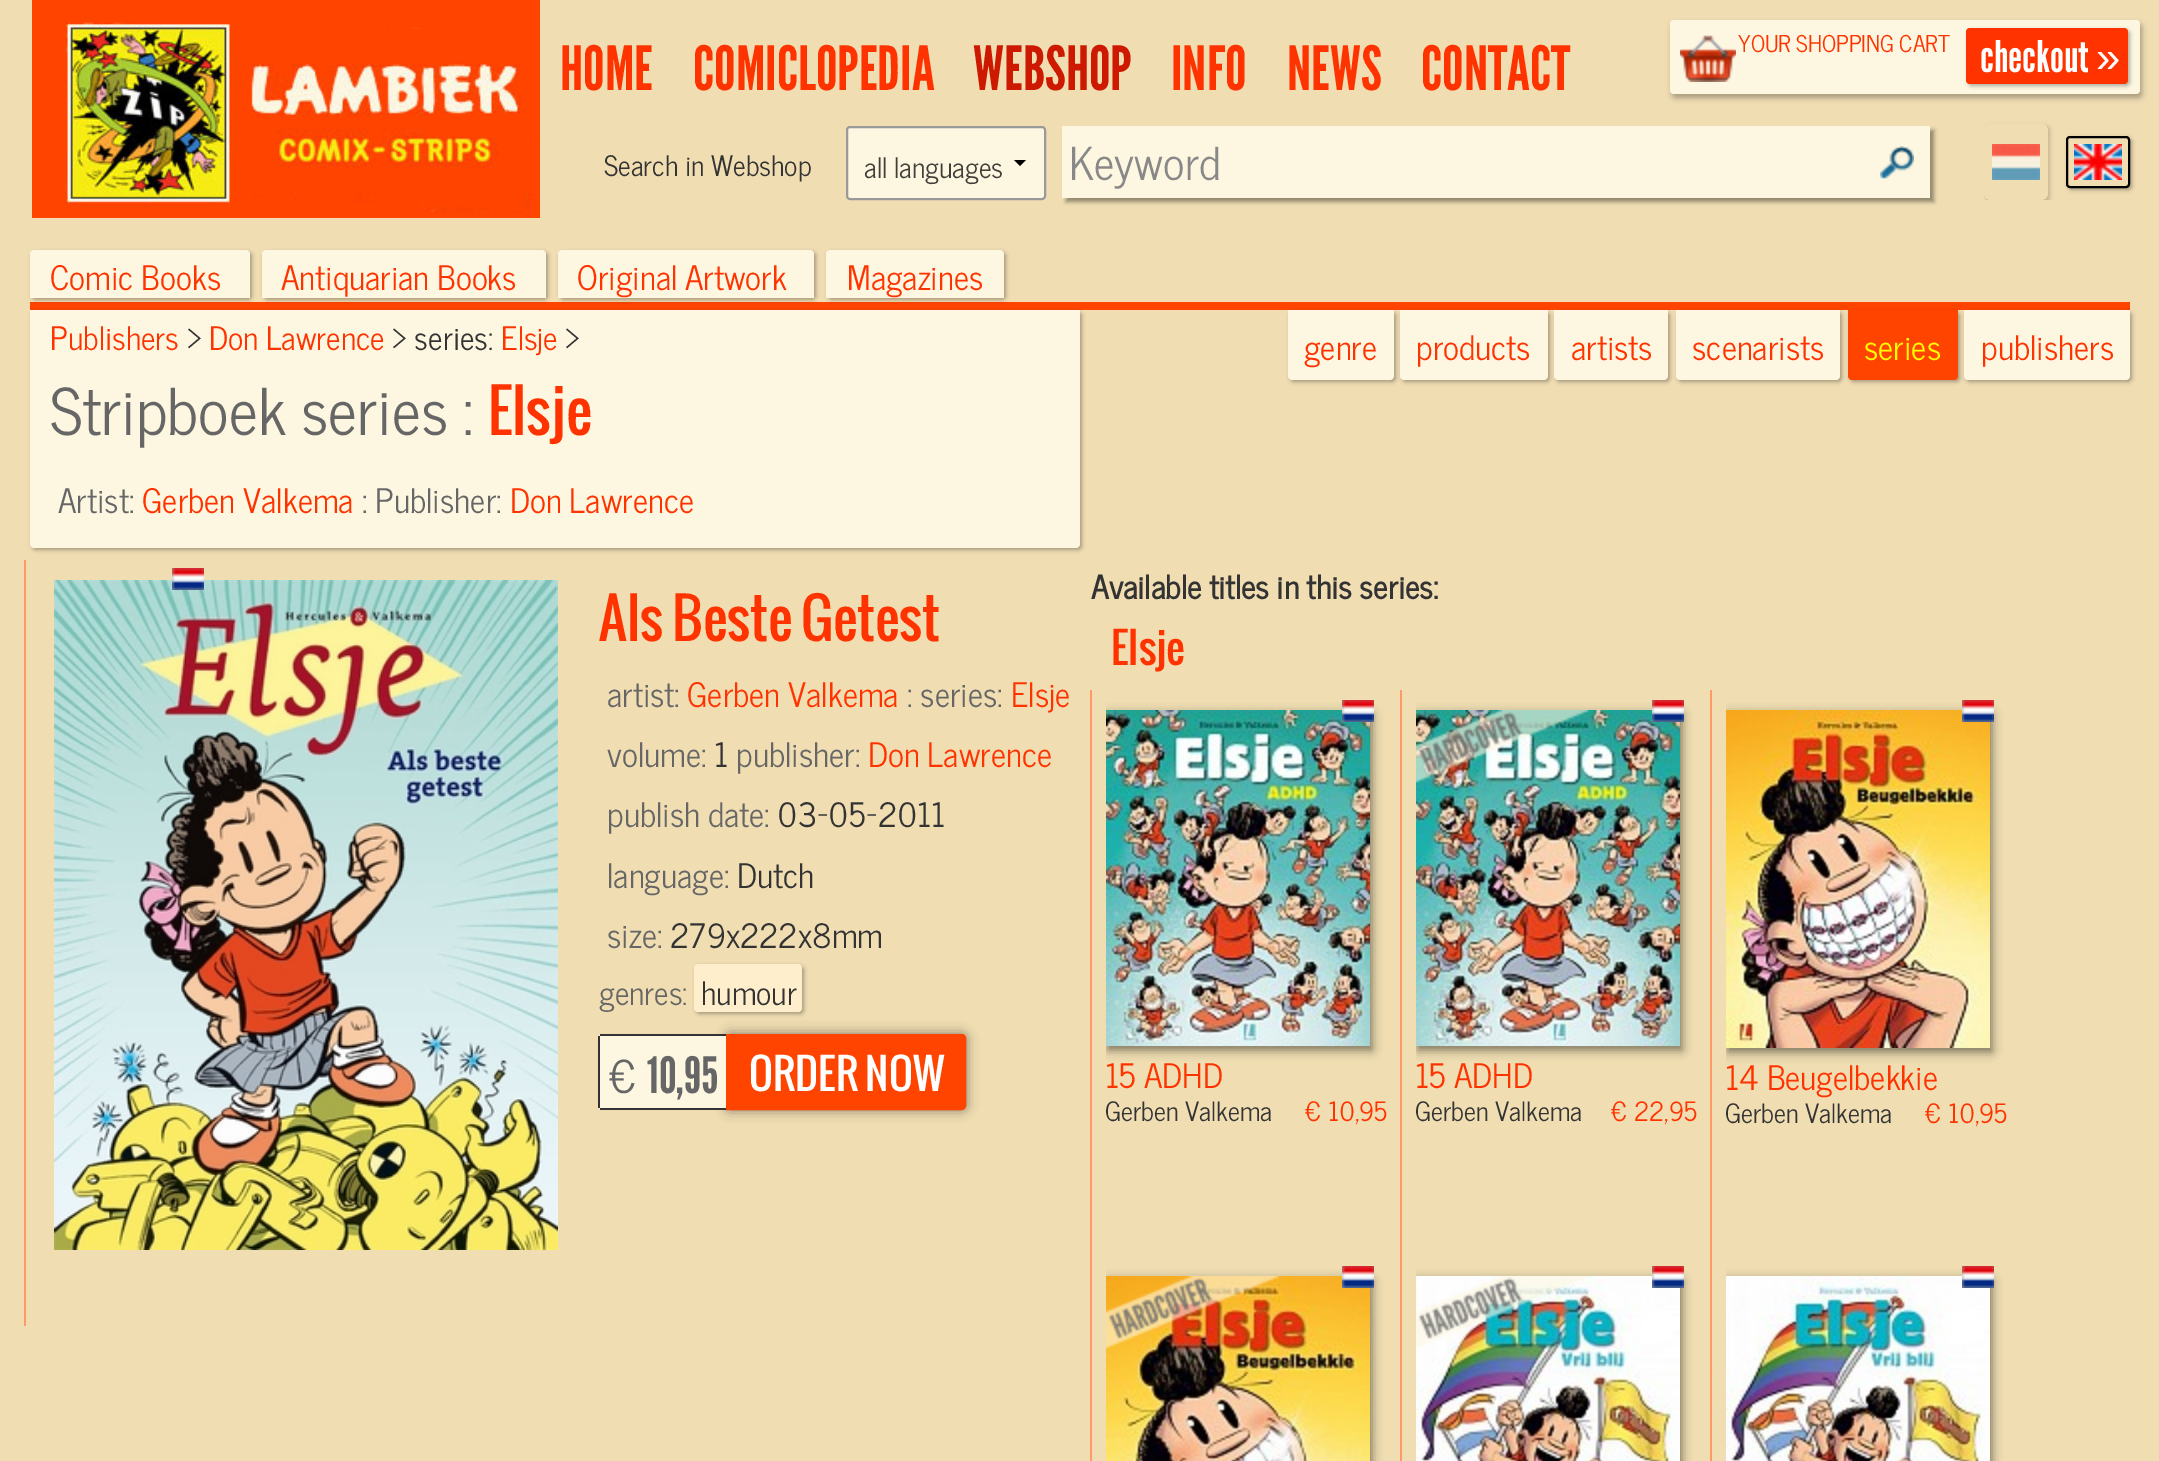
%!PS
<< /PageSize [2159 1461] /PageUsesTransparency true >> setpagedevice
/rgb { 3 { 255 div 3 1 roll } repeat setrgbcolor } def
/font { [ exch dup neg 0 0 3 -1 roll 0 0 ] selectfont } def
/text { moveto show } def
/alpha { dup .setfillconstantalpha .setstrokeconstantalpha } def
/roundrect { 5 dict begin { /r /h /w /y /x } { exch def } forall
  x r add y moveto x w add y 2 copy h add r arct x w add y h add x 1 index r arct
  x y h add x y r arct x y 2 copy exch w add exch r arct closepath end } def
/shadow { 12 dict begin { /a /b /q /h /w /y /x } { exch def } forall gsave /was 0 def
  9 -2 -9 { dup b mul 4 div /e exch def 1 sub .425 mul 2.718 exch exp 1 add a .99 .min exch div /now exch def
    1 1 now sub 1 was sub div sub alpha /was now def
    w h .min e 2 mul add 0 gt { x e sub y e sub w e 2 mul add h e 2 mul add
      q e add b .6 mul add w h .min 2 div e add .min 0 .max roundrect fill } if } for grestore end } def
/picture { 5 dict begin { /h /w /y /x /name } { exch def } forall
  gsave x y translate w h scale
  w h 8 [w 0 0 h 0 0] name (r) file false 3 colorimage grestore end } def
0 .pushpdf14devicefilter
0 1461 translate 1 -1 scale
4 setmiterlimit
240 221 178 rgb
0 0 2159 1461 rectfill
(img_01.rgb) 32 0 508 218 picture
253 246 225 rgb
846 126 200 74 4 roundrect fill
0 0 0 rgb
1026 160 moveto -6 6 rlineto -6 -6 rlineto closepath fill
153 153 153 rgb
2 setlinewidth
847 127 198 72 3 roundrect stroke
10 10 10 rgb
1066 130 868 72 0 2 0.4 shadow
253 246 225 rgb
1062 126 868 72 rectfill
(img_02.rgb) 1880 146 34 33 picture
0 0 0 rgb
1672 24 470 74 4 3 0.3 shadow
253 246 225 rgb
1670 20 470 74 4 roundrect fill
(img_03.rgb) 1680 35 56 47 picture
0 0 0 rgb
1968 30 162 56 4 2 0.3 shadow
255 51 0 rgb
1966 28 162 56 4 roundrect fill
gsave
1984 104 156 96 rectclip
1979 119 moveto 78 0 rlineto 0 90 rlineto -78 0 rlineto closepath 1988 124 moveto 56 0 rlineto 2 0 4 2 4 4 rcurveto 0 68 rlineto 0 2 -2 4 -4 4 rcurveto -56 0 rlineto -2 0 -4 -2 -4 -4 rcurveto 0 -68 rlineto 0 -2 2 -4 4 -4 rcurveto closepath eoclip newpath
96 88 71 rgb
1986 126 64 76 4 2 0.3 shadow
grestore
(img_04.rgb) 1992 144 48 36 picture
gsave
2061 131 moveto 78 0 rlineto 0 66 rlineto -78 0 rlineto closepath 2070 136 moveto 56 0 rlineto 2 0 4 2 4 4 rcurveto 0 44 rlineto 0 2 -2 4 -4 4 rcurveto -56 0 rlineto -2 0 -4 -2 -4 -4 rcurveto 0 -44 rlineto 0 -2 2 -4 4 -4 rcurveto closepath eoclip newpath
0 0 0 rgb
2068 138 64 52 4 2 0.3 shadow
grestore
(img_05.rgb) 2074 144 48 36 picture
0 0 0 rgb
2067 137 62 50 3 roundrect stroke
255 68 0 rgb
30 302 2100 8 rectfill
0 0 0 rgb
32 252 220 48 4 2 0.3 shadow
253 246 225 rgb
34 250 moveto 212 0 rlineto 2 0 4 2 4 4 rcurveto 0 44 rlineto -220 0 rlineto 0 -44 rlineto 0 -2 2 -4 4 -4 rcurveto closepath fill
0 0 0 rgb
264 252 284 48 4 2 0.3 shadow
253 246 225 rgb
266 250 moveto 276 0 rlineto 2 0 4 2 4 4 rcurveto 0 44 rlineto -284 0 rlineto 0 -44 rlineto 0 -2 2 -4 4 -4 rcurveto closepath fill
0 0 0 rgb
560 252 256 48 4 2 0.3 shadow
253 246 225 rgb
562 250 moveto 248 0 rlineto 2 0 4 2 4 4 rcurveto 0 44 rlineto -256 0 rlineto 0 -44 rlineto 0 -2 2 -4 4 -4 rcurveto closepath fill
0 0 0 rgb
828 252 178 48 4 2 0.3 shadow
253 246 225 rgb
830 250 moveto 170 0 rlineto 2 0 4 2 4 4 rcurveto 0 44 rlineto -178 0 rlineto 0 -44 rlineto 0 -2 2 -4 4 -4 rcurveto closepath fill
0 0 0 rgb
1290 312 106 70 4 2 0.3 shadow
253 246 225 rgb
1288 310 moveto 106 0 rlineto 0 66 rlineto 0 2 -2 4 -4 4 rcurveto -98 0 rlineto -2 0 -4 -2 -4 -4 rcurveto closepath fill
0 0 0 rgb
1402 312 148 70 4 2 0.3 shadow
253 246 225 rgb
1400 310 moveto 148 0 rlineto 0 66 rlineto 0 2 -2 4 -4 4 rcurveto -140 0 rlineto -2 0 -4 -2 -4 -4 rcurveto closepath fill
0 0 0 rgb
1556 312 114 70 4 2 0.3 shadow
253 246 225 rgb
1554 310 moveto 114 0 rlineto 0 66 rlineto 0 2 -2 4 -4 4 rcurveto -106 0 rlineto -2 0 -4 -2 -4 -4 rcurveto closepath fill
0 0 0 rgb
1678 312 164 70 4 2 0.3 shadow
253 246 225 rgb
1676 310 moveto 164 0 rlineto 0 66 rlineto 0 2 -2 4 -4 4 rcurveto -156 0 rlineto -2 0 -4 -2 -4 -4 rcurveto closepath fill
0 0 0 rgb
1850 312 110 70 4 2 0.3 shadow
255 68 0 rgb
1848 310 moveto 110 0 rlineto 0 66 rlineto 0 2 -2 4 -4 4 rcurveto -102 0 rlineto -2 0 -4 -2 -4 -4 rcurveto closepath fill
0 0 0 rgb
1966 312 166 70 4 2 0.3 shadow
253 246 225 rgb
1964 310 moveto 166 0 rlineto 0 66 rlineto 0 2 -2 4 -4 4 rcurveto -158 0 rlineto -2 0 -4 -2 -4 -4 rcurveto closepath fill
0 0 0 rgb
32 312 1050 238 4 2 0.3 shadow
253 246 225 rgb
30 310 moveto 1050 0 rlineto 0 234 rlineto 0 2 -2 4 -4 4 rcurveto -1042 0 rlineto -2 0 -4 -2 -4 -4 rcurveto closepath fill
255 153 102 rgb
24 560 2 766 rectfill
(img_07.rgb) 54 580 504 670 picture
(img_06.rgb) 172 568 32 22 picture
0 0 0 rgb
696 966 108 48 4 2 0.3 shadow
255 238 204 rgb
694 964 108 48 4 roundrect fill
10 10 10 rgb
726 1034 240 76 4 6 0.5 shadow
253 246 225 rgb
602 1034 moveto 124 0 rlineto 0 76 rlineto -124 0 rlineto -2 0 -4 -2 -4 -4 rcurveto 0 -68 rlineto 0 -2 2 -4 4 -4 rcurveto closepath fill
51 51 51 rgb
600 1034 126 2 rectfill
600 1108 126 2 rectfill
598 1036 2 72 rectfill
255 68 0 rgb
727 1035 moveto 235 0 rlineto 1.5 0 3 1.5 3 3 rcurveto 0 68 rlineto 0 1.5 -1.5 3 -3 3 rcurveto -235 0 rlineto closepath gsave fill grestore
stroke
255 153 102 rgb
1090 690 2 771 rectfill
gsave
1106 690 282 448 rectclip
0 0 0 rgb
1108 714 264 336 0 5 0.5 shadow
grestore
(img_08.rgb) 1106 710 264 336 picture
(img_06.rgb) 1342 700 32 22 picture
1400 690 2 771 rectfill
gsave
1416 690 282 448 rectclip
0 0 0 rgb
1418 714 264 336 0 5 0.5 shadow
grestore
(img_08.rgb) 1416 710 264 336 picture
(img_09.rgb) 1416 710 174 73 picture
(img_06.rgb) 1652 700 32 22 picture
1710 690 2 771 rectfill
gsave
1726 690 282 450 rectclip
0 0 0 rgb
1728 714 264 338 0 5 0.5 shadow
grestore
(img_10.rgb) 1726 710 264 338 picture
(img_06.rgb) 1962 700 32 22 picture
gsave
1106 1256 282 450 rectclip
0 0 0 rgb
1108 1280 264 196 0 5 0.5 shadow
grestore
(img_11.rgb) 1106 1276 264 185 picture
(img_12.rgb) 1106 1276 174 73 picture
(img_06.rgb) 1342 1266 32 22 picture
gsave
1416 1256 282 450 rectclip
0 0 0 rgb
1418 1280 264 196 0 5 0.5 shadow
grestore
(img_13.rgb) 1416 1276 264 185 picture
(img_14.rgb) 1416 1276 172 72 picture
(img_06.rgb) 1652 1266 32 22 picture
gsave
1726 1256 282 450 rectclip
0 0 0 rgb
1728 1280 264 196 0 5 0.5 shadow
grestore
(img_13.rgb) 1726 1276 264 185 picture
(img_06.rgb) 1962 1266 32 22 picture
/LeagueGothic-Regular 61 font
255 51 0 rgb
(HOME) 560 90 text
(COMICLOPEDIA) 693 90 text
204 25 0 rgb
(WEBSHOP) 973 90 text
255 51 0 rgb
(INFO) 1171 90 text
(NEWS) 1287 90 text
(CONTACT) 1421 90 text
/NewsCycle-Medium 28 font
51 51 51 rgb
(Search in Webshop) 604 176 text
63 62 56 rgb
(all languages) 864 178 text
/NewsCycle-Medium 45 font
136 136 136 rgb
(Keyword) 1069 180 text
/NewsCycle-Medium 23 font
255 51 0 rgb
(YOUR SHOPPING CART) 1738 52 text
/LeagueGothic-Regular 43.5 font
255 255 255 rgb
(checkout) 1980 72 text
/LiberationSans-Regular 43.5 font
(») 2096 72 text
/NewsCycle-Medium 33.5 font
255 51 0 rgb
(Comic Books) 50 290 text
(Antiquarian Books) 281 290 text
(Original Artwork) 577 290 text
(Magazines) 847 290 text
(genre) 1304 360 text
(products) 1416 360 text
(artists) 1571 360 text
(scenarists) 1692 360 text
255 255 0 rgb
(series) 1864 360 text
255 51 0 rgb
(publishers) 1981 360 text
/NewsCycle-Medium 32 font
(Publishers) 50 350 text
51 51 51 rgb
(>) 187 350 text
255 51 0 rgb
(Don Lawrence) 209 350 text
51 51 51 rgb
(> series:) 392 350 text
255 51 0 rgb
(Elsje) 501 350 text
51 51 51 rgb
(>) 565 350 text
/NewsCycle-Medium 64 font
102 102 102 rgb
(Stripboek series :) 50 435 text
/Oswald-Regular 58 font
255 51 0 rgb
(Elsje) 488 435 text
/NewsCycle-Medium 33.5 font
102 102 102 rgb
(Artist:) 58 513 text
255 51 0 rgb
(Gerben Valkema) 142 513 text
102 102 102 rgb
(: Publisher:) 362 513 text
255 51 0 rgb
(Don Lawrence) 510 513 text
/NewsCycle-Bold 32 font
51 51 51 rgb
(Available titles in this series:) 1091 599 text
/Oswald-Regular 54.5 font
255 51 0 rgb
(Als Beste Getest) 599 641 text
/NewsCycle-Medium 33.5 font
102 102 102 rgb
(artist:) 607 707 text
255 51 0 rgb
(Gerben Valkema) 687 707 text
102 102 102 rgb
(: series:) 907 707 text
255 51 0 rgb
(Elsje) 1011 707 text
102 102 102 rgb
(volume:) 607 767 text
51 51 51 rgb
(1) 714 767 text
102 102 102 rgb
(publisher:) 736 767 text
255 51 0 rgb
(Don Lawrence) 868 767 text
102 102 102 rgb
(publish date:) 607 827 text
51 51 51 rgb
(03-05-2011) 777 827 text
102 102 102 rgb
(language:) 607 888 text
51 51 51 rgb
(Dutch) 737 888 text
102 102 102 rgb
(size:) 607 948 text
51 51 51 rgb
(279x222x8mm) 670 948 text
/NewsCycle-Medium 32 font
102 102 102 rgb
(genres:) 599 1005 text
51 51 51 rgb
(humour) 701 1005 text
/NewsCycle-Medium 45 font
102 102 102 rgb
(€) 609 1093 text
/LeagueGothic-Regular 50 font
(10,95) 647 1093 text
/Oswald-Regular 41.5 font
255 255 255 rgb
(ORDER NOW) 749 1091 text
255 51 0 rgb
(Elsje) 1111 665 text
/NewsCycle-Medium 33.5 font
(15 ADHD) 1105 1088 text
/NewsCycle-Medium 26.5 font
51 51 51 rgb
(Gerben Valkema) 1105 1121 text
255 51 0 rgb
(€ 10,95) 1305 1121 text
/NewsCycle-Medium 33.5 font
(15 ADHD) 1415 1088 text
/NewsCycle-Medium 26.5 font
51 51 51 rgb
(Gerben Valkema) 1415 1121 text
255 51 0 rgb
(€ 22,95) 1611 1121 text
/NewsCycle-Medium 33.5 font
(14 Beugelbekkie) 1725 1090 text
/NewsCycle-Medium 26.5 font
51 51 51 rgb
(Gerben Valkema) 1725 1123 text
255 51 0 rgb
(€ 10,95) 1925 1123 text
.poppdf14devicefilter showpage
